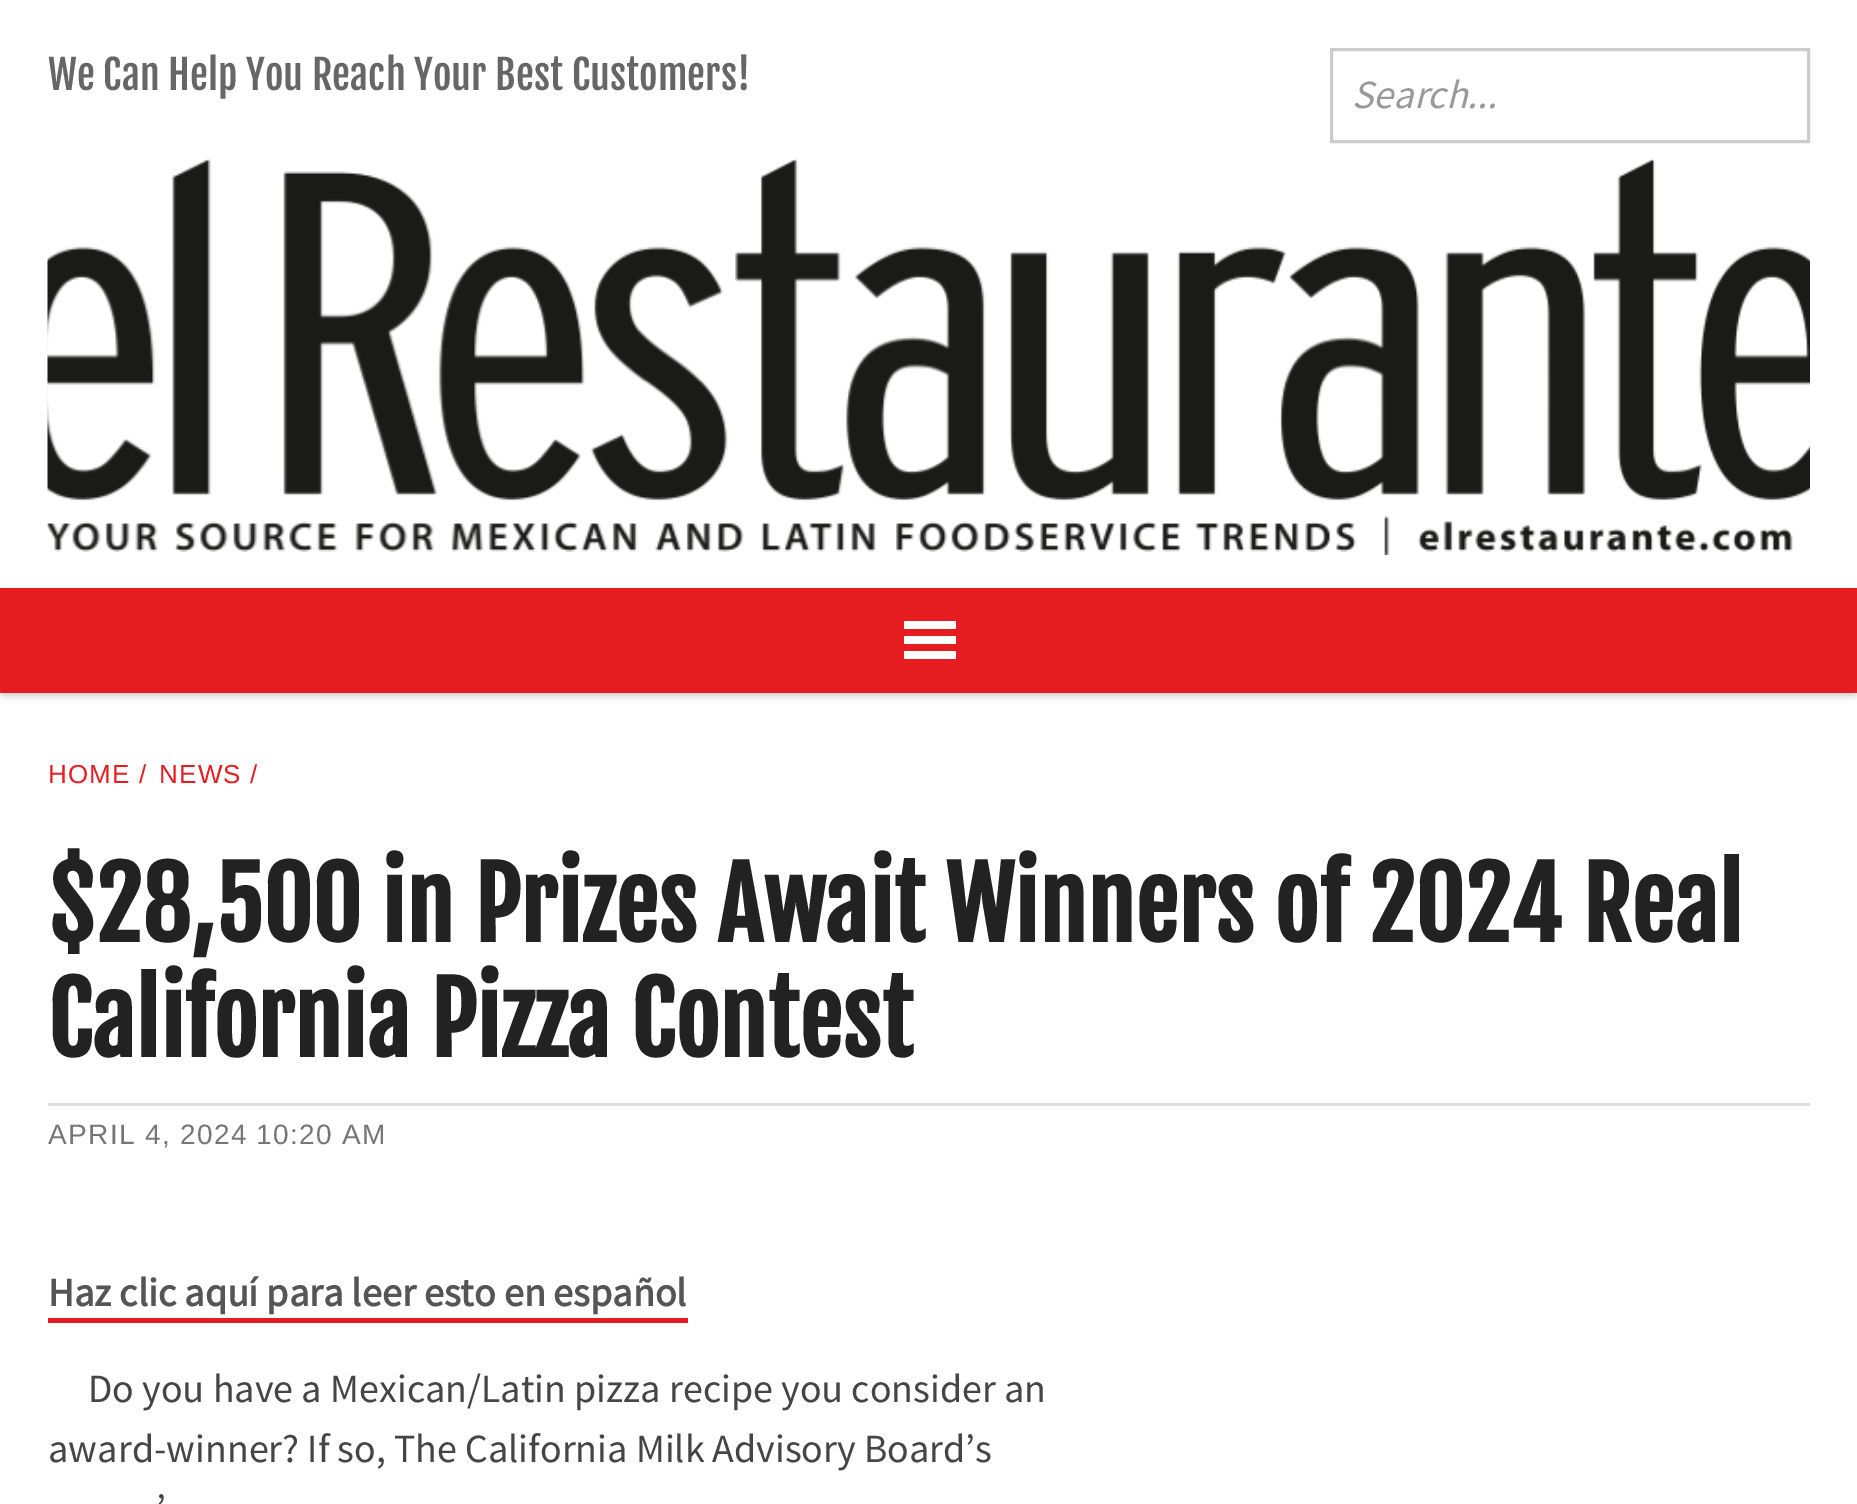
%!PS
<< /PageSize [1857 1504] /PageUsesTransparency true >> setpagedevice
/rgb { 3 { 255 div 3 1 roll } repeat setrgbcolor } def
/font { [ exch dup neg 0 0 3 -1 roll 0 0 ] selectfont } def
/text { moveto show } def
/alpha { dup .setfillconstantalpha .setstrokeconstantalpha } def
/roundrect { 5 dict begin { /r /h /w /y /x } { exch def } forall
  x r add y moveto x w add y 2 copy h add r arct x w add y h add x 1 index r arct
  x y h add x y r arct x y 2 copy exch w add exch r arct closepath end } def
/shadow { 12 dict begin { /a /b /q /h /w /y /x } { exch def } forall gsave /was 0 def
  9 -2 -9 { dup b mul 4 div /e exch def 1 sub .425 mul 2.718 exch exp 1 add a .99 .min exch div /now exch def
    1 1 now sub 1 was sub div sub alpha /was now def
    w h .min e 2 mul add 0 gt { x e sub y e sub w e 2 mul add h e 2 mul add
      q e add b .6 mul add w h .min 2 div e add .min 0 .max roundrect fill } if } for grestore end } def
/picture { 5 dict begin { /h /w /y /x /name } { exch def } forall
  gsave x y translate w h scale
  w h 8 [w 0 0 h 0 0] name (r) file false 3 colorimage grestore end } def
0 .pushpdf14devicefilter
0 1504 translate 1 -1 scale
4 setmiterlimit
255 255 255 rgb
0 0 1857 1504 rectfill
(img_01.rgb) 47 158 1763 397 picture
204 204 204 rgb
3 setlinewidth
1331.5 49.5 477 92 rectstroke
51 51 51 rgb
3 595 1852 100 0 4 0.3 shadow
229 29 32 rgb
0 588 1857 105 rectfill
255 255 255 rgb
956 651 moveto -52 0 rlineto 0 8 rlineto 52 0 rlineto closepath 956 636 moveto -52 0 rlineto 0 8 rlineto 52 0 rlineto closepath 956 621 moveto -52 0 rlineto 0 8 rlineto 52 0 rlineto closepath fill
222 222 222 rgb
48 1103 1762 3 rectfill
229 29 32 rgb
48 1318 640 5 rectfill
/FjallaOne-Regular 40 font
102 102 102 rgb
(We Can Help You Reach Your Best Customers!) 48 90 text
/SourceSansPro-Italic 40 font
153 153 153 rgb
(Search...) 1352 108 text
/LiberationSans-Regular 26 font
229 29 32 rgb
48 783 moveto 1.25 0 (HOME /) ashow
159 783 moveto 1.25 0 (NEWS /) ashow
/FjallaOne-Bold 96 font
34 34 34 rgb
($28,500 in Prizes Await Winners of 2024 Real) 48 942 text
(California Pizza Contest) 48 1057 text
/LiberationSans-Regular 28 font
118 118 118 rgb
48 1144 moveto 1.4 0 (APRIL 4, 2024) ashow
256 1144 moveto 1.4 0 (10:20 AM) ashow
/SourceSansPro-Bold 40 font
85 85 85 rgb
(Haz clic aquí para leer esto en español) 48 1306 text
/SourceSansPro-Regular 40 font
69 69 69 rgb
(Do you have a Mexican/Latin pizza recipe you consider an) 88 1402 text
(award-winner? If so, The California Milk Advisory Board’s) 48 1462 text
(’) 156 1522 text
.poppdf14devicefilter showpage
